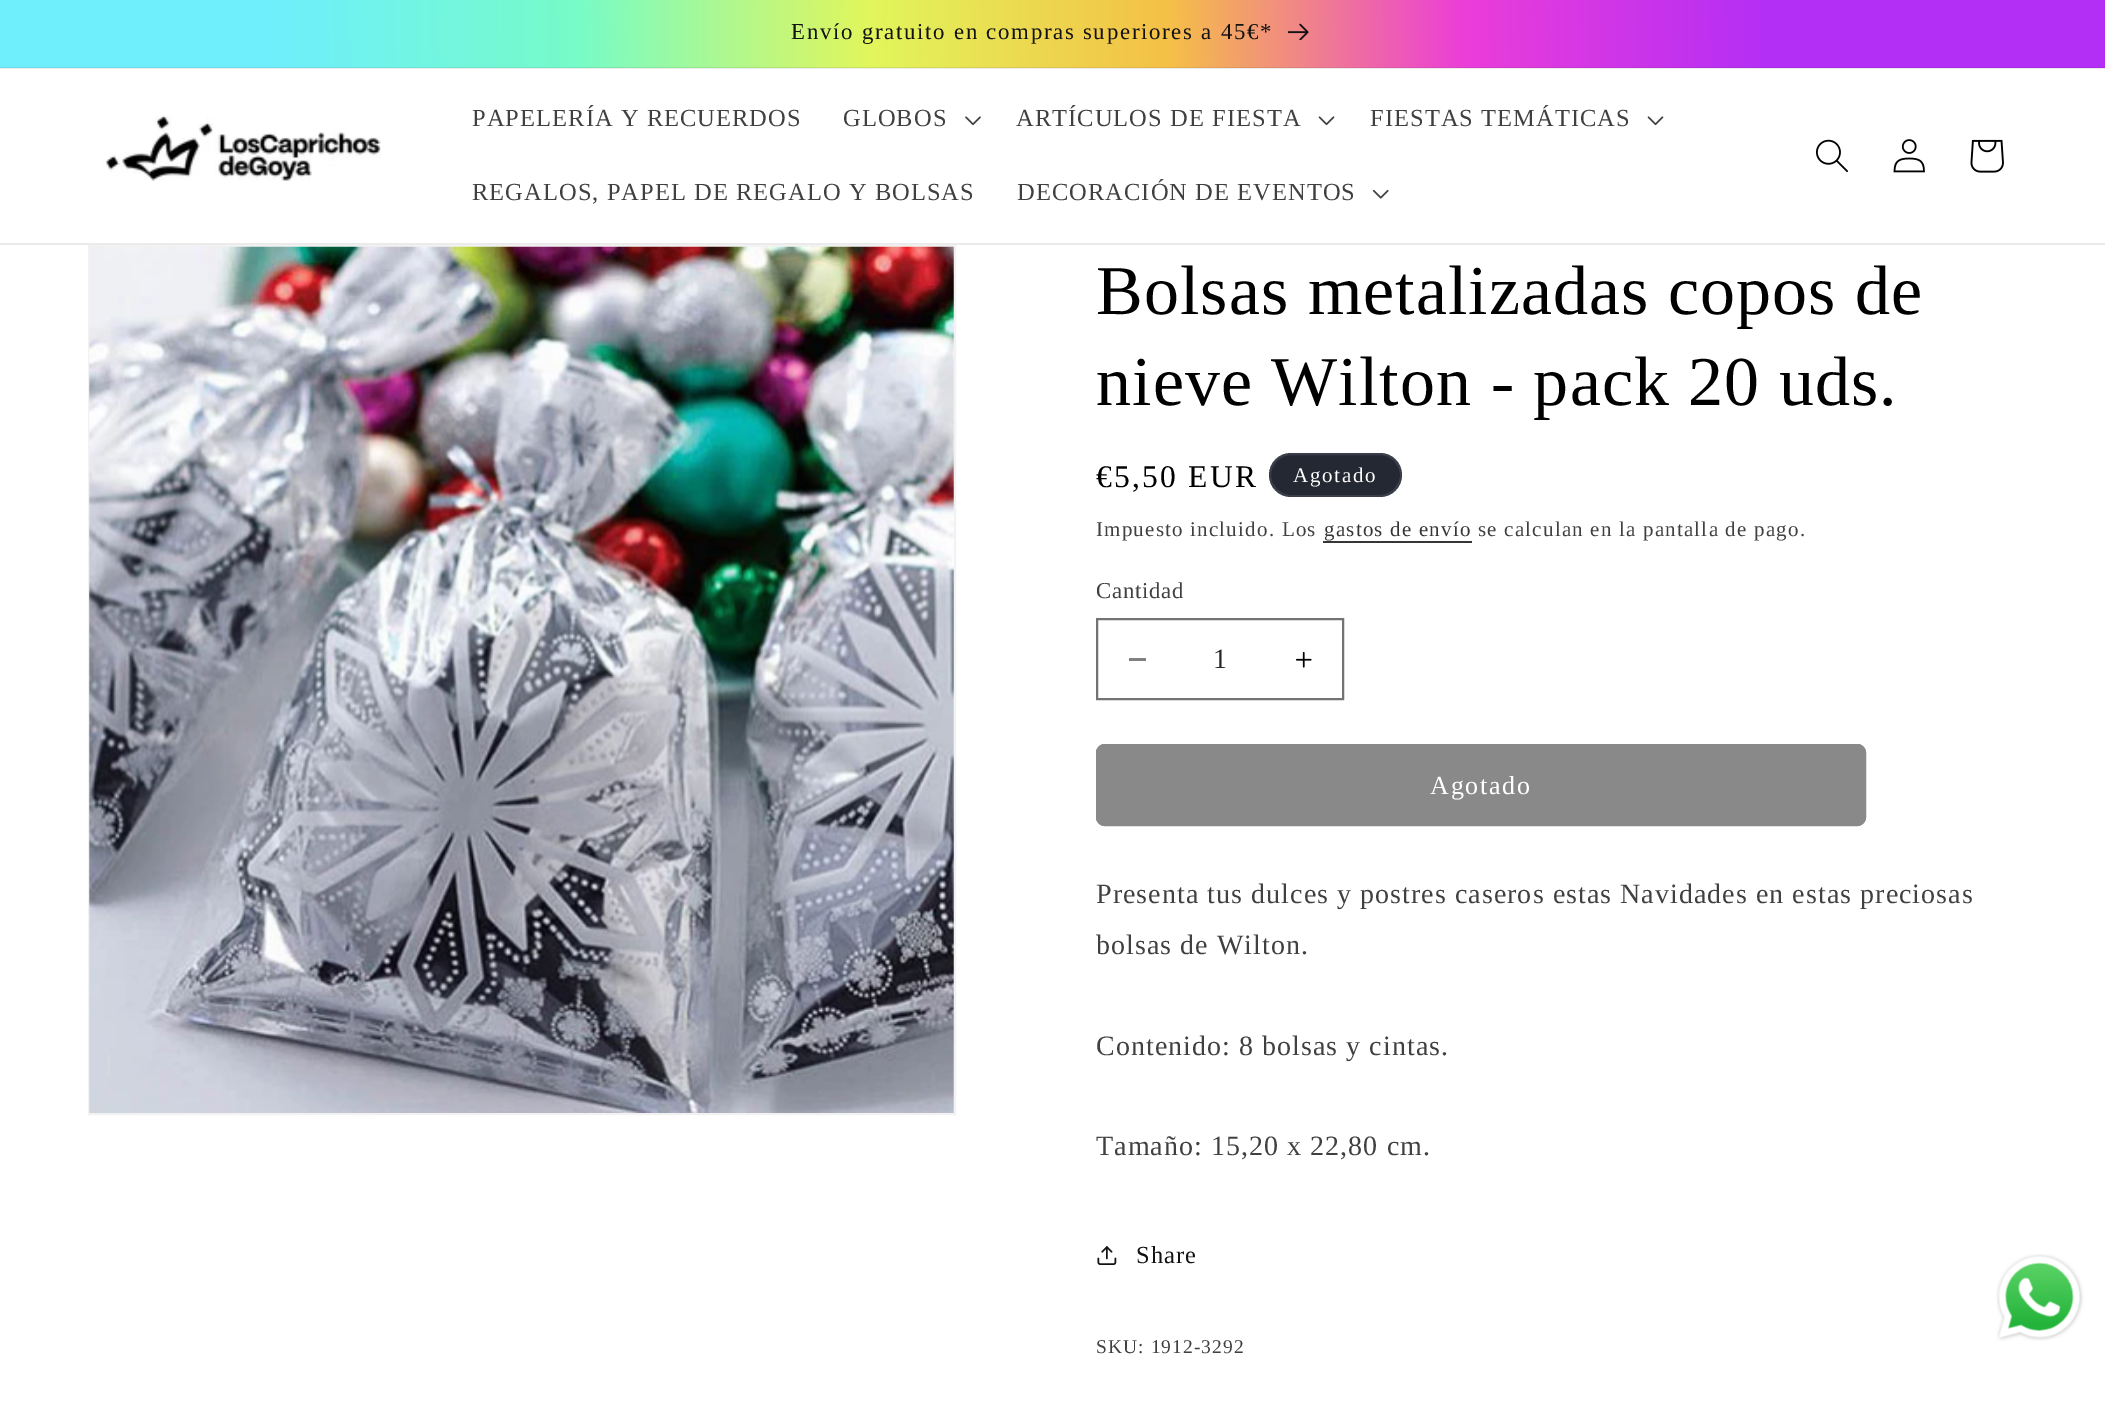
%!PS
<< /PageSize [2105 1427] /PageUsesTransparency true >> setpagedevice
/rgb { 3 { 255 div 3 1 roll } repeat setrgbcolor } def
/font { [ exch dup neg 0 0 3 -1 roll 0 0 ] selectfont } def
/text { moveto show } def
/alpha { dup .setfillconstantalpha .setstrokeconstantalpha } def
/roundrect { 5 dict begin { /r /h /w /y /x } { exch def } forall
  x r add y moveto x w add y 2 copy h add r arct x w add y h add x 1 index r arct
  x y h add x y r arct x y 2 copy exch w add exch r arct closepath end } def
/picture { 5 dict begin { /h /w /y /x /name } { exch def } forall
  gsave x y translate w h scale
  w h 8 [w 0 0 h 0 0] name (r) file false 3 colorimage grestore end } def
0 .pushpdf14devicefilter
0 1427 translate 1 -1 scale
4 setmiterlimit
255 255 255 rgb
0 0 2105 1427 rectfill
236 236 236 rgb
0 68 2105 1 rectfill
gsave 0 0 moveto 2105 0 rlineto 0 67 rlineto -2105 0 rlineto closepath clip newpath
<< /ShadingType 2 /ColorSpace /DeviceRGB /Coords [-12 733 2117 695] /Extend [true true] /Function << /FunctionType 3 /Domain [0 1] /Functions [<< /FunctionType 2 /Domain [0 1] /C0 [0.435 0.937 0.988] /C1 [0.435 0.937 0.988] /N 1 >> << /FunctionType 2 /Domain [0 1] /C0 [0.435 0.937 0.988] /C1 [0.463 0.984 0.788] /N 1 >> << /FunctionType 2 /Domain [0 1] /C0 [0.463 0.984 0.788] /C1 [0.886 0.965 0.357] /N 1 >> << /FunctionType 2 /Domain [0 1] /C0 [0.886 0.965 0.357] /C1 [0.961 0.753 0.278] /N 1 >> << /FunctionType 2 /Domain [0 1] /C0 [0.961 0.753 0.278] /C1 [0.922 0.239 0.851] /N 1 >> << /FunctionType 2 /Domain [0 1] /C0 [0.922 0.239 0.851] /C1 [0.706 0.184 0.961] /N 1 >> << /FunctionType 2 /Domain [0 1] /C0 [0.706 0.184 0.961] /C1 [0.706 0.184 0.961] /N 1 >>] /Bounds [0.14 0.28 0.42 0.56 0.7 0.84] /Encode [0 1 0 1 0 1 0 1 0 1 0 1 0 1] >> >> shfill grestore
gsave 0 67 moveto 2105 0 rlineto 0 1 rlineto -2105 0 rlineto closepath clip newpath
<< /ShadingType 2 /ColorSpace /DeviceRGB /Coords [-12 733 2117 695] /Extend [true true] /Function << /FunctionType 3 /Domain [0 1] /Functions [<< /FunctionType 2 /Domain [0 1] /C0 [0.408 0.867 0.914] /C1 [0.408 0.867 0.914] /N 1 >> << /FunctionType 2 /Domain [0 1] /C0 [0.408 0.867 0.914] /C1 [0.431 0.91 0.729] /N 1 >> << /FunctionType 2 /Domain [0 1] /C0 [0.431 0.91 0.729] /C1 [0.82 0.894 0.333] /N 1 >> << /FunctionType 2 /Domain [0 1] /C0 [0.82 0.894 0.333] /C1 [0.89 0.698 0.263] /N 1 >> << /FunctionType 2 /Domain [0 1] /C0 [0.89 0.698 0.263] /C1 [0.855 0.227 0.788] /N 1 >> << /FunctionType 2 /Domain [0 1] /C0 [0.855 0.227 0.788] /C1 [0.655 0.176 0.89] /N 1 >> << /FunctionType 2 /Domain [0 1] /C0 [0.655 0.176 0.89] /C1 [0.655 0.176 0.89] /N 1 >>] /Bounds [0.14 0.28 0.42 0.56 0.7 0.84] /Encode [0 1 0 1 0 1 0 1 0 1 0 1 0 1] >> >> shfill grestore
(img_01.rgb) 1288 23 21 17 picture
235 235 235 rgb
0 243 2105 2 rectfill
(img_02.rgb) 103 115 278 66 picture
(img_03.rgb) 965 116 16 9 picture
(img_04.rgb) 1318 116 17 10 picture
(img_04.rgb) 1647 116 17 10 picture
(img_05.rgb) 1372 189 17 10 picture
(img_06.rgb) 1816 139 32 34 picture
(img_07.rgb) 1893 139 32 34 picture
(img_08.rgb) 1970 139 34 34 picture
242 242 242 rgb
2 setlinewidth
89 246 866 868 rectstroke
(img_09.rgb) 89 246 865 867 picture
36 40 51 rgb
1269 453 133 44 22 roundrect fill
0.1 alpha
255 255 255 rgb
1270 454 131 42 21 roundrect stroke
1 alpha
54 54 54 rgb
1323 541 149 2 rectfill
128 128 128 rgb
1129 658 17 3 rectfill
(img_10.rgb) 1295 651 17 17 picture
115 115 115 rgb
1097 619 246 80 rectstroke
137 137 137 rgb
1096 744 770 82 9 roundrect fill
1097 745 768 80 8 roundrect stroke
(img_11.rgb) 1097 1246 20 19 picture
(img_12.rgb) 1996 1254 88 87 picture
/LiberationSerif-Regular 22.75 font
18 18 18 rgb
791 39 moveto 1.75 0 (Envío gratuito en compras superiores a 45€*) ashow
/LiberationSerif-Regular 24.5 font
64 64 64 rgb
472 126 moveto 1.05 0 (PAPELERÍA Y RECUERDOS) ashow
843 126 moveto 1.05 0 (GLOBOS) ashow
1016 126 moveto 1.05 0 (ARTÍCULOS DE FIESTA) ashow
1370 126 moveto 1.05 0 (FIESTAS TEMÁTICAS) ashow
472 200 moveto 1.05 0 (REGALOS, PAPEL DE REGALO Y BOLSAS) ashow
1017 200 moveto 1.05 0 (DECORACIÓN DE EVENTOS) ashow
/LiberationSerif-Regular 70 font
0 0 0 rgb
1096 314 moveto 1.05 0 (Bolsas metalizadas copos de) ashow
1096 405 moveto 1.05 0 (nieve Wilton - pack 20 uds.) ashow
/LiberationSerif-Regular 31.5 font
1096 487 moveto 2.25 0 (€5,50 EUR) ashow
/LiberationSerif-Regular 21 font
255 255 255 rgb
1293 482 moveto 1.75 0 (Agotado) ashow
64 64 64 rgb
1096 536 moveto 1.2 0 (Impuesto incluido. Los) ashow
54 54 54 rgb
1324 536 moveto 1.2 0 (gastos de envío) ashow
64 64 64 rgb
1478 536 moveto 1.2 0 (se calculan en la pantalla de pago.) ashow
/LiberationSerif-Regular 22.75 font
1096 598 moveto 0.75 0 (Cantidad) ashow
/LiberationSerif-Regular 28 font
38 38 38 rgb
(1) 1213 668 text
/LiberationSerif-Regular 26 font
255 255 255 rgb
1430 794 moveto 1.75 0 (Agotado) ashow
/LiberationSerif-Regular 28 font
64 64 64 rgb
1096 903 moveto 1.05 0 (Presenta tus dulces y postres caseros estas Navidades en estas preciosas) ashow
1096 954 moveto 1.05 0 (bolsas de Wilton.) ashow
1096 1055 moveto 1.05 0 (Contenido: 8 bolsas y cintas.) ashow
1096 1155 moveto 1.05 0 (Tamaño: 15,20 x 22,80 cm.) ashow
/LiberationSerif-Regular 24.5 font
18 18 18 rgb
1136 1263 moveto 1.05 0 (Share) ashow
/LiberationSerif-Regular 19.5 font
64 64 64 rgb
1096 1353 moveto 1.05 0 (SKU: 1912-3292) ashow
.poppdf14devicefilter showpage
